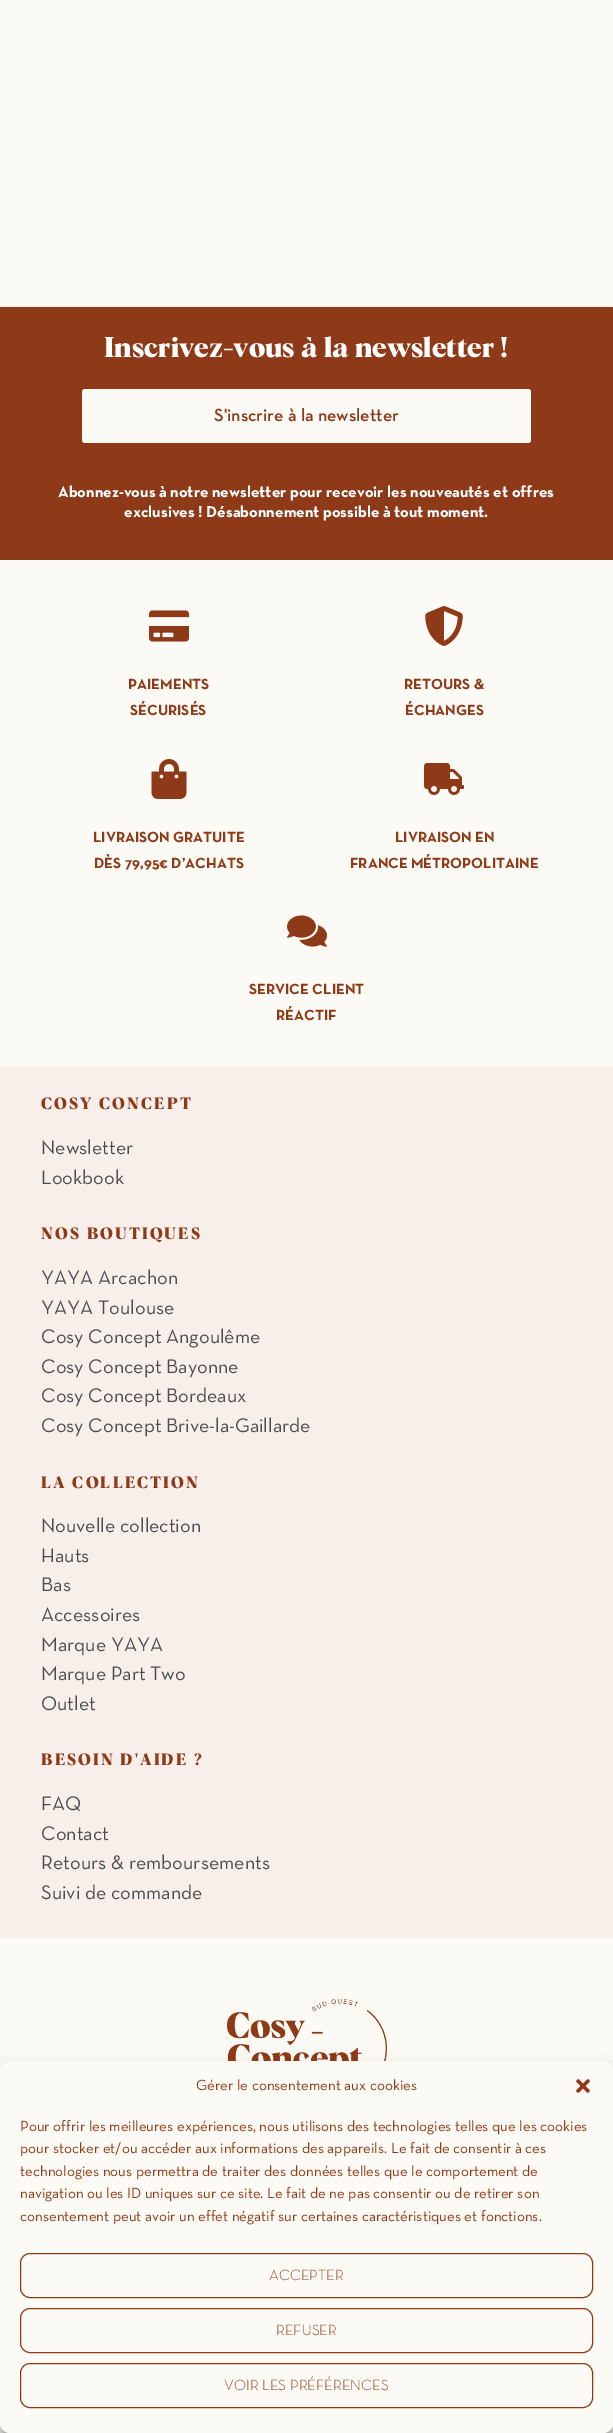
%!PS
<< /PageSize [613 2433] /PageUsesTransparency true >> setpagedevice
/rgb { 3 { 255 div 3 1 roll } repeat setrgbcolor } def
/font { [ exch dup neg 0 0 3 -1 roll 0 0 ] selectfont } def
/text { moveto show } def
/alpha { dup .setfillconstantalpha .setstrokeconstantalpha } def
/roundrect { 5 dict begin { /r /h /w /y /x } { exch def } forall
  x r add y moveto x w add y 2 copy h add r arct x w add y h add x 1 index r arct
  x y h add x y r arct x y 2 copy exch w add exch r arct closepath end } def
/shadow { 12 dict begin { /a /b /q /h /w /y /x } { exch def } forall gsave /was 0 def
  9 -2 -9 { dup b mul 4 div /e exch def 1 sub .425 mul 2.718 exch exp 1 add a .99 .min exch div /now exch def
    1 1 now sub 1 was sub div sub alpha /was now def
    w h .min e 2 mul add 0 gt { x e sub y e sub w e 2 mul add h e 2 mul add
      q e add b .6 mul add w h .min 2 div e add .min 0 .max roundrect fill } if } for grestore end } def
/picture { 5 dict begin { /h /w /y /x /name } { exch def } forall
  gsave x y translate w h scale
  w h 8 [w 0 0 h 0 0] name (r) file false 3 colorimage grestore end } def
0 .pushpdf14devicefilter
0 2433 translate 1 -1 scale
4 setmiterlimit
252 250 245 rgb
0 0 613 2433 rectfill
142 57 23 rgb
0 307 613 253 rectfill
252 250 245 rgb
82 389 449 54 3 roundrect fill
(img_01.rgb) 149 610 40 32 picture
(img_02.rgb) 425 606 38 40 picture
(img_03.rgb) 151 759 36 40 picture
(img_04.rgb) 424 763 40 32 picture
(img_05.rgb) 287 915 40 32 picture
248 239 235 rgb
0 1066 613 872 rectfill
(img_06.rgb) 227 1999 160 62 picture
0 0 0 rgb
0 2067 613 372 10 3 0.23 shadow
0 2071 613 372 10 10 0.19 shadow
252 250 245 rgb
0 2061 613 372 10 roundrect fill
(img_07.rgb) 576 2079 14 14 picture
142 57 23 rgb
20.5 2253.5 572 44 9.5 roundrect stroke
20.5 2308.5 572 44 9.5 roundrect stroke
20.5 2363.5 572 44 9.5 roundrect stroke
/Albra-Bold 28 font
255 255 255 rgb
(Inscrivez-vous à la newsletter !) 104 357 text
/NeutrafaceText-SemiBold 18 font
142 57 23 rgb
(S'inscrire à la newsletter) 214 421 text
/NeutrafaceText-Bold 16 font
255 255 255 rgb
(Abonnez-vous à notre newsletter pour recevoir les nouveautés et offres) 58 497 text
(exclusives ! Désabonnement possible à tout moment.) 124 517 text
/NeutrafaceText-Bold 15 font
142 57 23 rgb
(PAIEMENTS) 128 689 text
(SÉCURISÉS) 130 715 text
(RETOURS &) 404 689 text
(ÉCHANGES) 405 715 text
(LIVRAISON GRATUITE) 93 842 text
(DÈS 79,95€ D’ACHATS) 94 868 text
(LIVRAISON EN) 395 842 text
(FRANCE MÉTROPOLITAINE) 350 868 text
(SERVICE CLIENT) 249 994 text
(RÉACTIF) 276 1020 text
/Albra-Bold 16 font
41 1109 moveto 2 0 (COSY CONCEPT) ashow
/NeutrafaceText-Regular 20 font
74 76 79 rgb
(Newsletter) 41 1154 text
(Lookbook) 41 1184 text
/Albra-Bold 16 font
142 57 23 rgb
41 1239 moveto 2 0 (NOS BOUTIQUES) ashow
/NeutrafaceText-Regular 20 font
74 76 79 rgb
(YAYA Arcachon) 41 1284 text
(YAYA Toulouse) 41 1314 text
(Cosy Concept Angoulême) 41 1343 text
(Cosy Concept Bayonne) 41 1373 text
(Cosy Concept Bordeaux) 41 1402 text
(Cosy Concept Brive-la-Gaillarde) 41 1432 text
/Albra-Bold 16 font
142 57 23 rgb
41 1488 moveto 2 0 (LA COLLECTION) ashow
/NeutrafaceText-Regular 20 font
74 76 79 rgb
(Nouvelle collection) 41 1532 text
(Hauts) 41 1562 text
(Bas) 41 1591 text
(Accessoires) 41 1621 text
(Marque YAYA) 41 1651 text
(Marque Part Two) 41 1680 text
(Outlet) 41 1710 text
/Albra-Bold 16 font
142 57 23 rgb
41 1765 moveto 2 0 (BESOIN D'AIDE ?) ashow
/NeutrafaceText-Regular 20 font
74 76 79 rgb
(FAQ) 41 1810 text
(Contact) 41 1840 text
(Retours & remboursements) 41 1869 text
(Suivi de commande) 41 1899 text
/NeutrafaceText-Regular 15 font
142 57 23 rgb
(Gérer le consentement aux cookies) 196 2090 text
(Pour offrir les meilleures expériences, nous utilisons des technologies telles que les cookies) 20 2131 text
(pour stocker et/ou accéder aux informations des appareils. Le fait de consentir à ces) 20 2153 text
(technologies nous permettra de traiter des données telles que le comportement de) 20 2176 text
(navigation ou les ID uniques sur ce site. Le fait de ne pas consentir ou de retirer son) 20 2198 text
(consentement peut avoir un effet négatif sur certaines caractéristiques et fonctions.) 20 2221 text
/NeutrafaceText-Light 15 font
(ACCEPTER) 269 2280 text
(REFUSER) 276 2335 text
(VOIR LES PRÉFÉRENCES) 224 2390 text
.poppdf14devicefilter showpage
